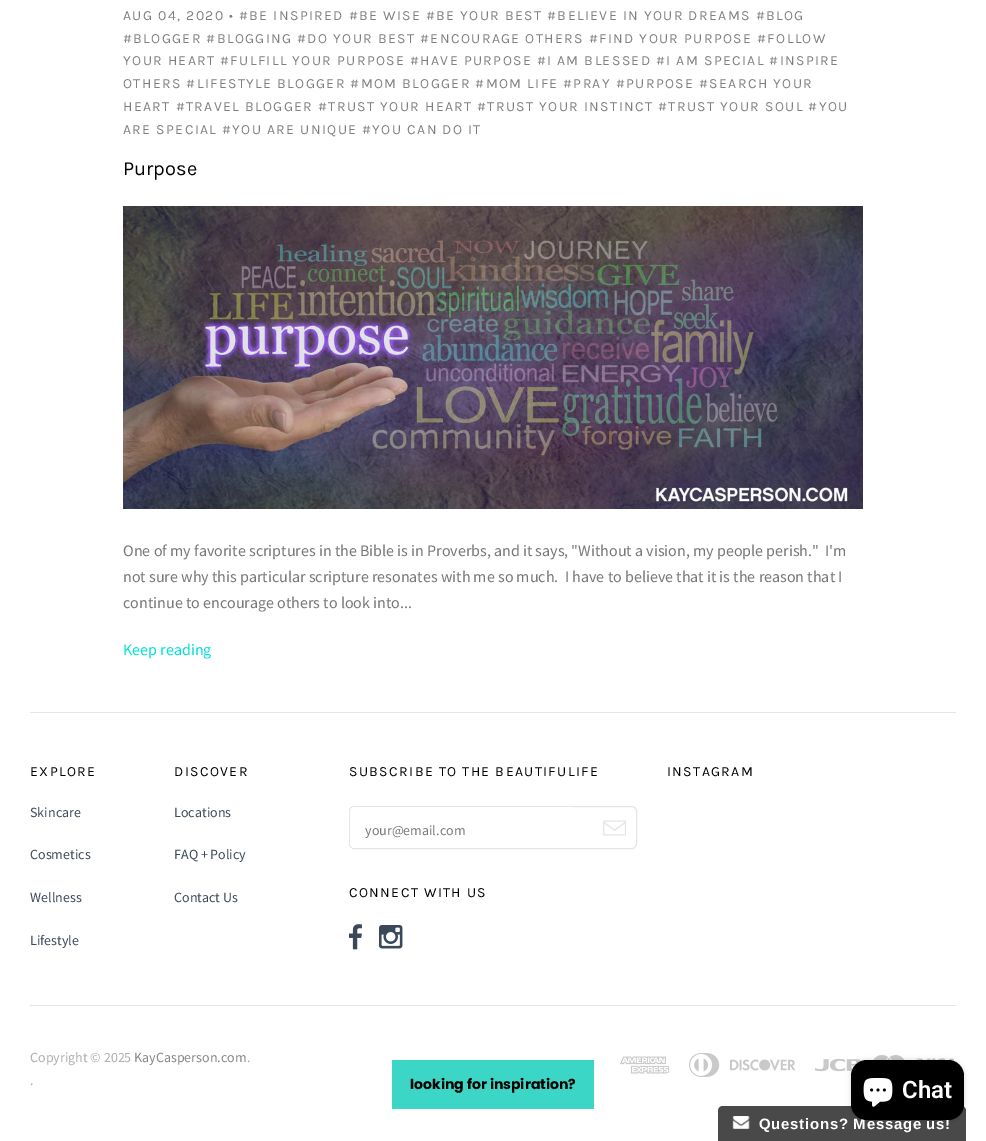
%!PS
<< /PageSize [986 1141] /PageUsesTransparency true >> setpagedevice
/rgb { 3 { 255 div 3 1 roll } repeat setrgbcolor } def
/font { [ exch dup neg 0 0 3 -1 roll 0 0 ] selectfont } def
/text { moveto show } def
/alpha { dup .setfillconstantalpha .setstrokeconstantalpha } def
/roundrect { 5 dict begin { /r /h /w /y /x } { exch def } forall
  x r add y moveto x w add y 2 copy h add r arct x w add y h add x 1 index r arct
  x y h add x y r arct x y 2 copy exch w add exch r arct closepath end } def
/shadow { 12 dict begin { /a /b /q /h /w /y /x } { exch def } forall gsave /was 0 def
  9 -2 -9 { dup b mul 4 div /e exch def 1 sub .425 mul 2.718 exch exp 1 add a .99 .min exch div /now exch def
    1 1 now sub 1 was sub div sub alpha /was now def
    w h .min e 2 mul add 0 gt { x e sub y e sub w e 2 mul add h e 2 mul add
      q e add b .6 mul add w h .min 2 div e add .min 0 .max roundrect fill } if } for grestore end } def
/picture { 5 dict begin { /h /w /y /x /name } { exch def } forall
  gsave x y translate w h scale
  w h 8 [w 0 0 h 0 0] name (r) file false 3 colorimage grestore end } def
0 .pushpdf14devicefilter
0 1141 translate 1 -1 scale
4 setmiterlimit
255 255 255 rgb
0 0 986 1141 rectfill
(img_01.rgb) 123 206 740 303 picture
229 229 229 rgb
30 712 926 1 rectfill
349.5 806.5 287 42 4.5 roundrect stroke
255 255 255 rgb
350 807 226 41 5 roundrect fill
(img_02.rgb) 603 820 23 16 picture
(img_03.rgb) 349 924 13 26 picture
(img_04.rgb) 379 925 24 24 picture
229 229 229 rgb
30 1005 926 1 rectfill
(img_05.rgb) 620 1056 50 18 picture
(img_06.rgb) 689 1053 31 24 picture
(img_07.rgb) 730 1059 66 12 picture
(img_08.rgb) 815 1058 46 14 picture
(img_09.rgb) 873 1055 32 5 picture
(img_10.rgb) 916 1058 39 4 picture
59 214 198 rgb
392 1060 202 49 rectfill
73 73 73 rgb
723 1106 moveto 238 0 rlineto 3 0 5 2 5 5 rcurveto 0 30 rlineto -248 0 rlineto 0 -30 rlineto 0 -3 2 -5 5 -5 rcurveto closepath fill
0 0 0 rgb
851 1060 113 60 16 2.5 0.15 shadow
(img_12.rgb) 732 1116 18 13 picture
/Karla-Regular 14 font
127 127 127 rgb
123 20 moveto 1.4 0 (AUG 04, 2020 • #BE INSPIRED #BE WISE #BE YOUR BEST #BELIEVE IN YOUR DREAMS #BLOG) ashow
123 43 moveto 1.4 0 (#BLOGGER #BLOGGING #DO YOUR BEST #ENCOURAGE OTHERS #FIND YOUR PURPOSE #FOLLOW) ashow
123 65 moveto 1.4 0 (YOUR HEART #FULFILL YOUR PURPOSE #HAVE PURPOSE #I AM BLESSED #I AM SPECIAL #INSPIRE) ashow
123 88 moveto 1.4 0 (OTHERS #LIFESTYLE BLOGGER #MOM BLOGGER #MOM LIFE #PRAY #PURPOSE #SEARCH YOUR) ashow
123 111 moveto 1.4 0 (HEART #TRAVEL BLOGGER #TRUST YOUR HEART #TRUST YOUR INSTINCT #TRUST YOUR SOUL #YOU) ashow
123 134 moveto 1.4 0 (ARE SPECIAL #YOU ARE UNIQUE #YOU CAN DO IT) ashow
/Karla-Regular 20 font
0 0 0 rgb
(Purpose) 123 175 text
/SourceSansPro-Regular 16 font
119 119 119 rgb
(One of my favorite scriptures in the Bible is in Proverbs, and it says, "Without a vision, my people perish."  I'm) 123 556 text
(not sure why this particular scripture resonates with me so much.  I have to believe that it is the reason that I) 123 582 text
(continue to encourage others to look into...) 123 608 text
1 223 215 rgb
(Keep reading) 123 655 text
/Karla-Regular 14 font
0 0 0 rgb
30 776 moveto 1.4 0 (EXPLORE) ashow
/SourceSansPro-Regular 14 font
59 72 88 rgb
(Skincare) 30 817 text
(Cosmetics) 30 859 text
(Wellness) 30 902 text
(Lifestyle) 30 945 text
/Karla-Regular 14 font
0 0 0 rgb
174 776 moveto 1.4 0 (DISCOVER) ashow
/SourceSansPro-Regular 14 font
59 72 88 rgb
(Locations) 174 817 text
(FAQ + Policy) 174 859 text
(Contact Us) 174 902 text
/Karla-Regular 14 font
0 0 0 rgb
349 776 moveto 1.4 0 (SUBSCRIBE TO THE BEAUTIFULIFE) ashow
/SourceSansPro-Regular 14 font
119 119 119 rgb
(your@email.com) 365 835 text
/Karla-Regular 14 font
0 0 0 rgb
349 897 moveto 1.4 0 (CONNECT WITH US) ashow
667 776 moveto 1.4 0 (INSTAGRAM) ashow
/SourceSansPro-Regular 14 font
173 173 173 rgb
(Copyright © 2025) 30 1062 text
133 133 133 rgb
(KayCasperson.com) 134 1062 text
173 173 173 rgb
(.) 247 1062 text
(.) 30 1085 text
/Poppins-Bold 14 font
0 0 0 rgb
(looking for inspiration?) 410 1089 text
/LiberationSans-Bold 15 font
255 255 255 rgb
759 1129 moveto 0.7 0 (Questions? Message us!) ashow
0 0 0 rgb
851 1060 113 60 16 roundrect fill
/Roboto-SemiBold 24 font
255 255 255 rgb
(Chat) 902 1098 text
(img_11.rgb) 863 1078 30 29 picture
.poppdf14devicefilter showpage
